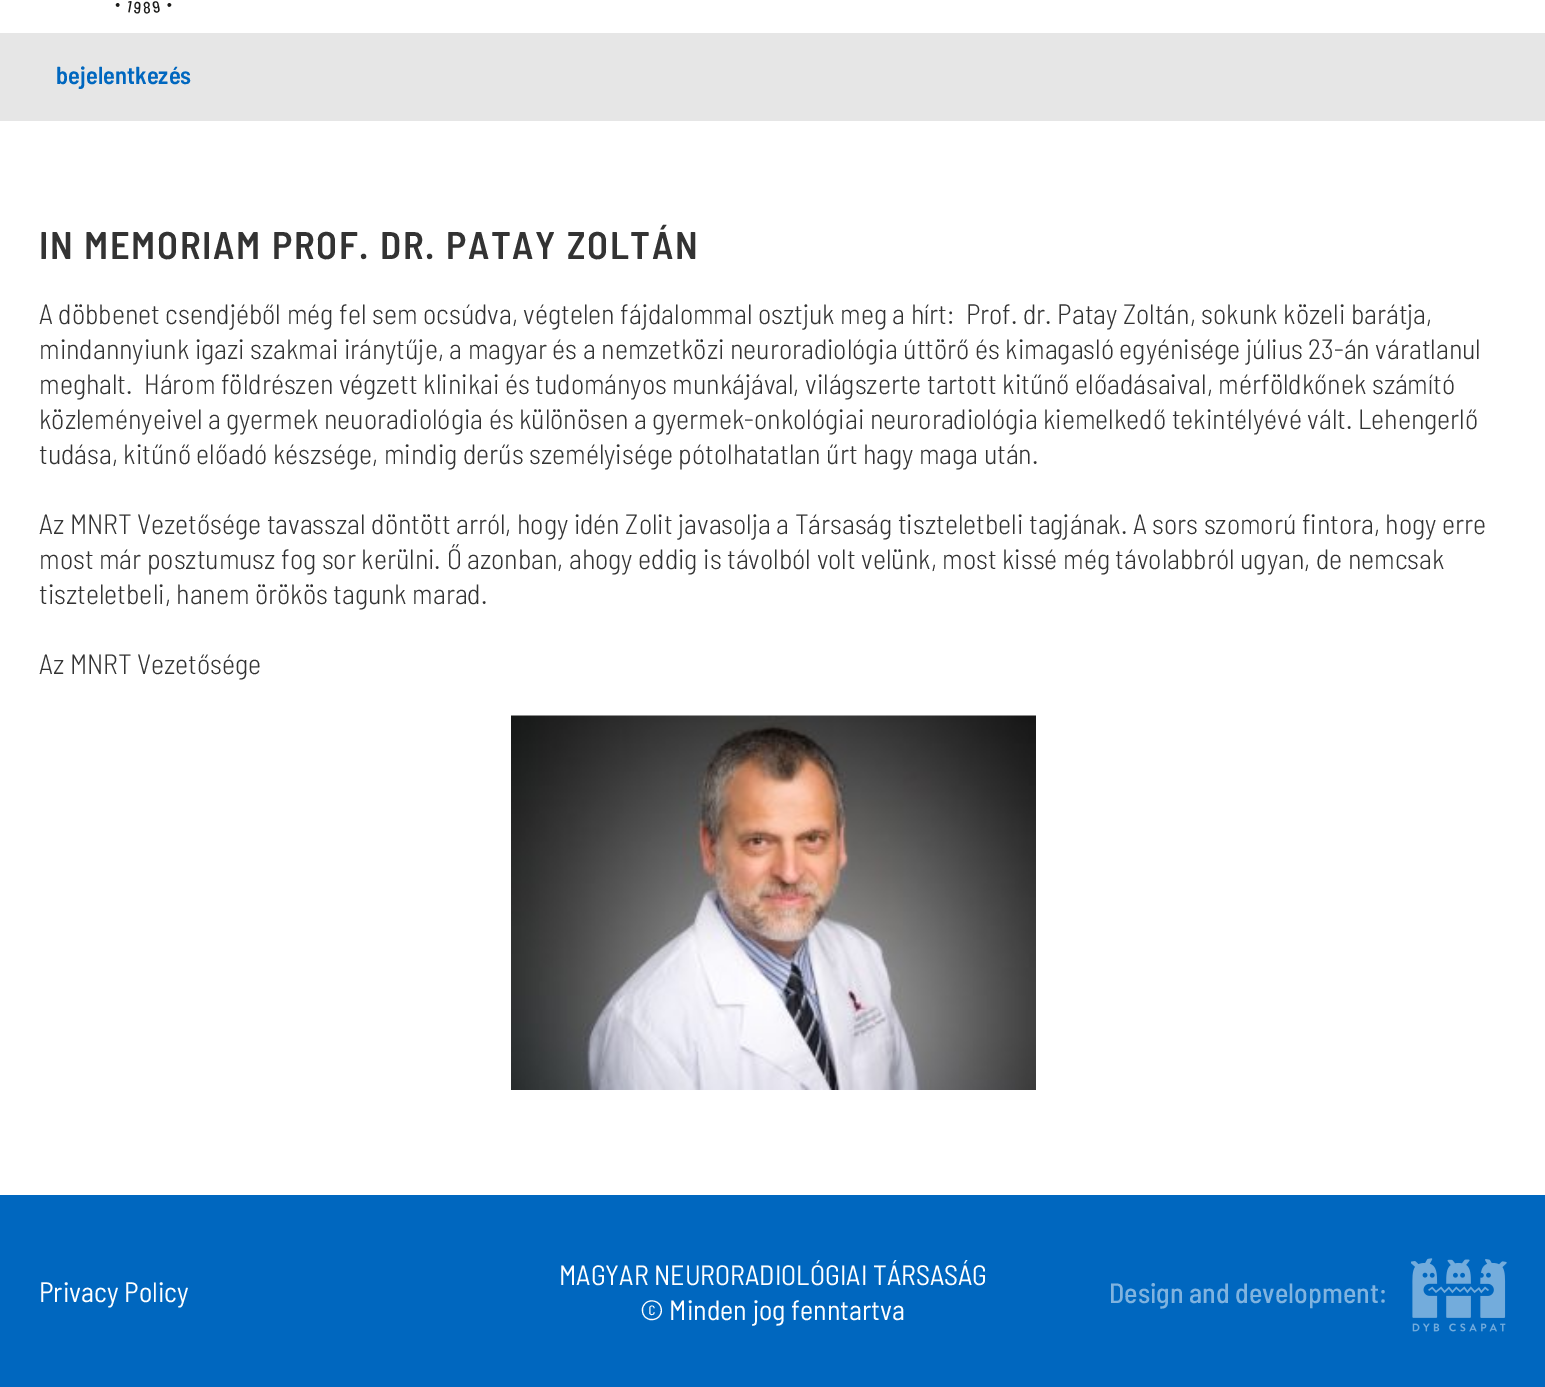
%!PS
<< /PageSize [1545 1387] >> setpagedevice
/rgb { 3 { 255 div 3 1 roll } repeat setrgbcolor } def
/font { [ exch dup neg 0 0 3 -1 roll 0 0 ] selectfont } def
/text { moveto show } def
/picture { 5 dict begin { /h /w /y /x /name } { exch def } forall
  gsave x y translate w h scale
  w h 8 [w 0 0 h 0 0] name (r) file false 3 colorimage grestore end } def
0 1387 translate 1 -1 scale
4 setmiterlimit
255 255 255 rgb
0 0 1545 1387 rectfill
(img_01.rgb) 115 1 57 13 picture
230 230 230 rgb
0 33 1545 88 rectfill
(img_02.rgb) 511 715 525 375 picture
0 103 191 rgb
0 1195 1545 192 rectfill
(img_03.rgb) 1411 1258 96 74 picture
/BarlowSemiCondensed-SemiBold 24.5 font
(bejelentkezés) 56 84 text
/BarlowSemiCondensed-SemiBold 38.5 font
51 51 51 rgb
39 259 moveto 1.75 0 (IN MEMORIAM PROF. DR. PATAY ZOLTÁN) ashow
/BarlowSemiCondensed-Light 28 font
(A döbbenet csendjéből még fel sem ocsúdva, végtelen fájdalommal osztjuk meg a hírt:  Prof. dr. Patay Zoltán, sokunk közeli barátja,) 39 324 text
(mindannyiunk igazi szakmai iránytűje, a magyar és a nemzetközi neuroradiológia úttörő és kimagasló egyénisége július 23-án váratlanul) 39 359 text
(meghalt.  Három földrészen végzett klinikai és tudományos munkájával, világszerte tartott kitűnő előadásaival, mérföldkőnek számító) 39 394 text
(közleményeivel a gyermek neuoradiológia és különösen a gyermek-onkológiai neuroradiológia kiemelkedő tekintélyévé vált. Lehengerlő) 39 429 text
(tudása, kitűnő előadó készsége, mindig derűs személyisége pótolhatatlan űrt hagy maga után.) 39 464 text
(Az MNRT Vezetősége tavasszal döntött arról, hogy idén Zolit javasolja a Társaság tiszteletbeli tagjának. A sors szomorú fintora, hogy erre) 39 534 text
(most már posztumusz fog sor kerülni. Ő azonban, ahogy eddig is távolból volt velünk, most kissé még távolabbról ugyan, de nemcsak) 39 569 text
(tiszteletbeli, hanem örökös tagunk marad.) 39 604 text
(Az MNRT Vezetősége) 39 674 text
/BarlowSemiCondensed-Regular 28 font
255 255 255 rgb
(MAGYAR NEURORADIOLÓGIAI TÁRSASÁG) 559 1285 text
(Privacy Policy) 39 1302 text
/BarlowSemiCondensed-Medium 28 font
128 179 223 rgb
(Design and development:) 1109 1303 text
/BarlowSemiCondensed-Regular 28 font
255 255 255 rgb
(© Minden jog fenntartva) 640 1320 text
showpage
